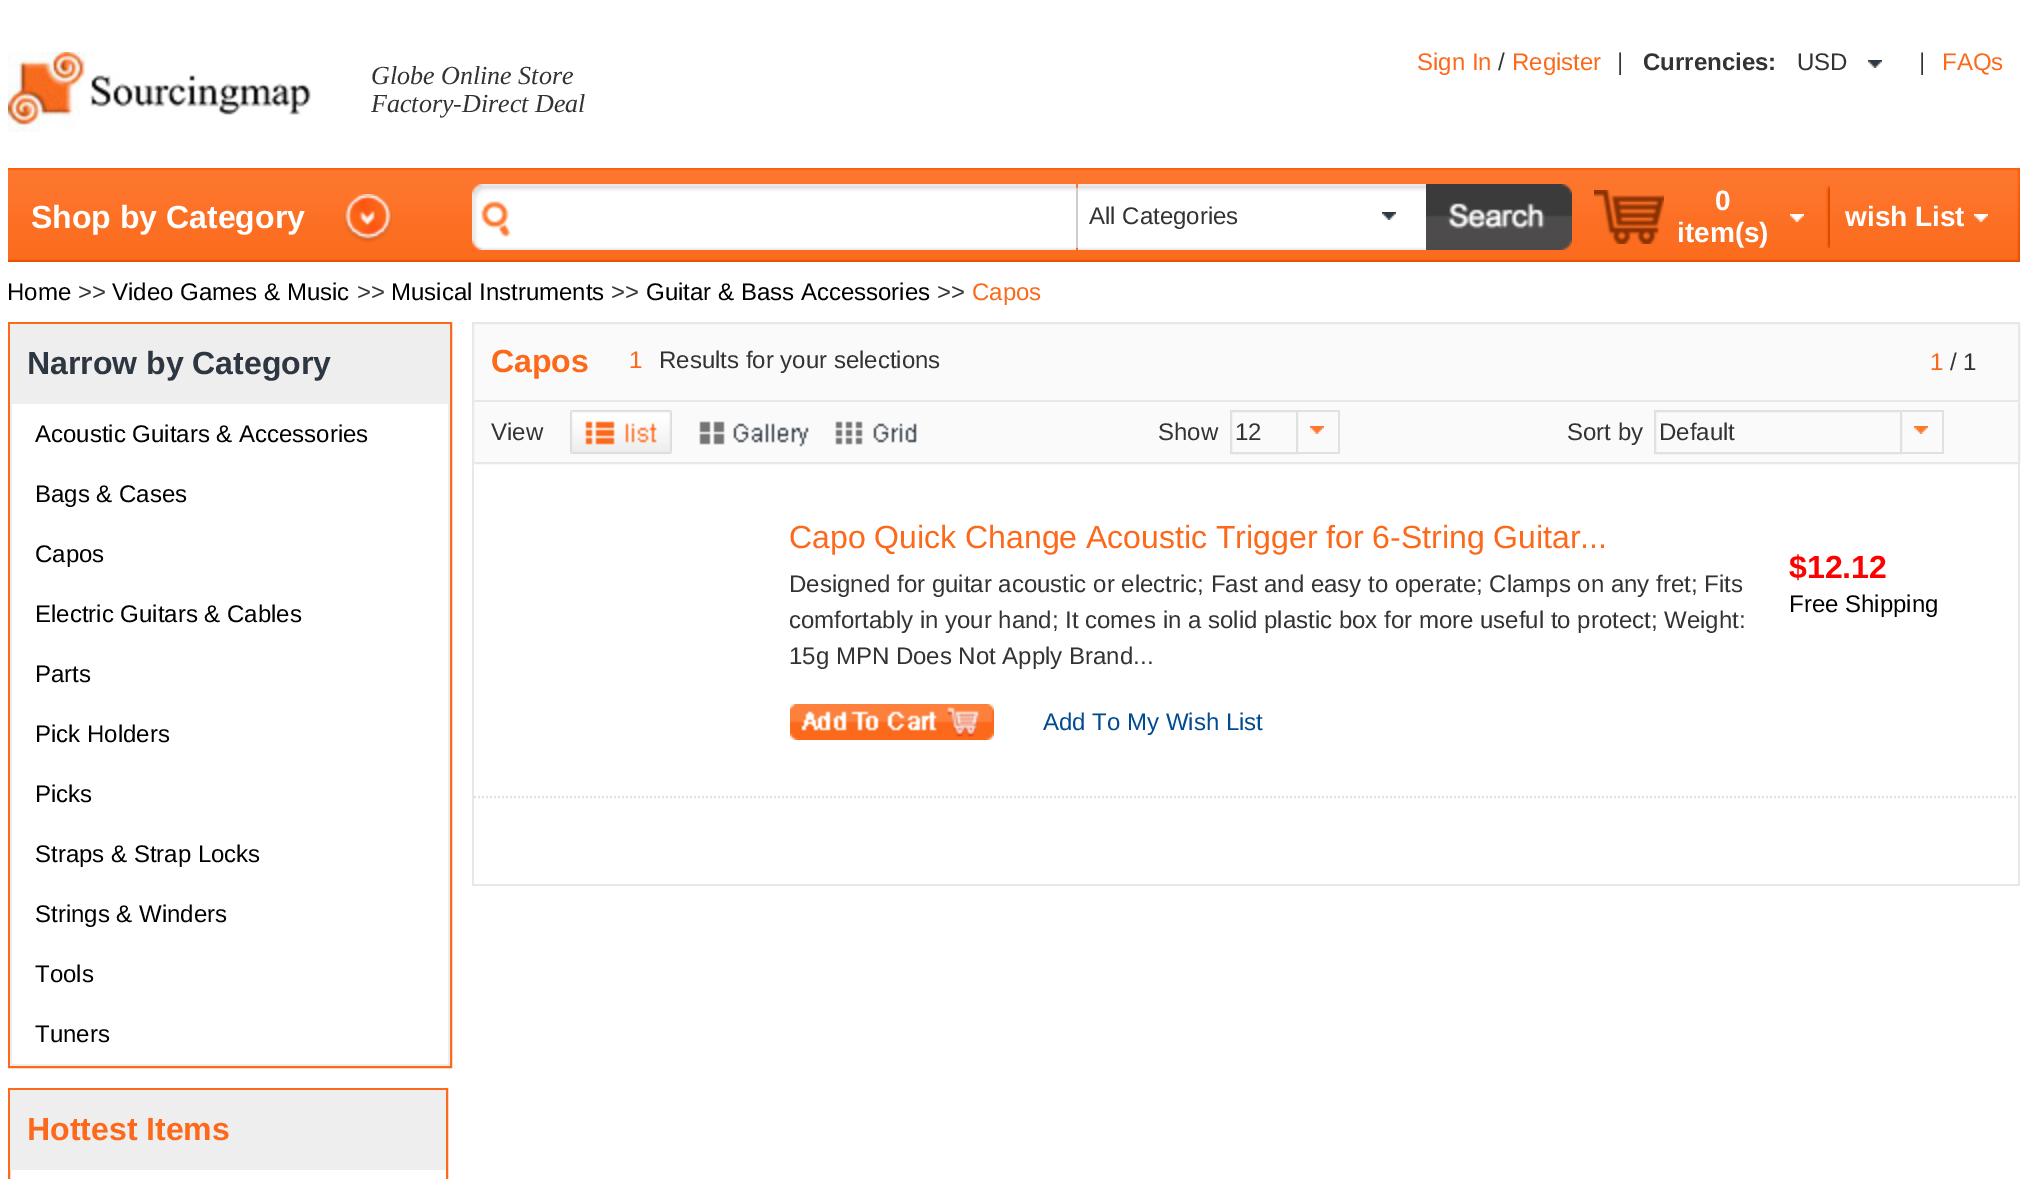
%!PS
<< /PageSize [2026 1179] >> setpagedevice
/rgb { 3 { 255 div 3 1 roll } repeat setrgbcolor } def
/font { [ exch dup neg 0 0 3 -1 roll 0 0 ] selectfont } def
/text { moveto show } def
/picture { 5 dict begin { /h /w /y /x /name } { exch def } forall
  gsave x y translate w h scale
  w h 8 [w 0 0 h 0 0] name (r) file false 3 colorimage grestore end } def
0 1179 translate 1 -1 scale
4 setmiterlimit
255 255 255 rgb
0 0 2026 1179 rectfill
(img_01.rgb) 8 52 303 80 picture
(img_02.rgb) 1868 60 14 8 picture
(img_03.rgb) 8 168 440 94 picture
(img_04.rgb) 344 194 48 48 picture
(img_05.rgb) 448 168 1136 94 picture
(img_06.rgb) 472 184 42 66 picture
(img_07.rgb) 514 184 562 66 picture
206 204 205 rgb
1076 188 2 60 rectfill
(img_08.rgb) 1078 184 284 66 picture
(img_09.rgb) 1362 184 64 66 picture
(img_02.rgb) 1382 212 14 8 picture
(img_10.rgb) 1426 184 146 66 picture
(img_11.rgb) 1584 168 436 94 picture
(img_12.rgb) 1594 190 70 54 picture
(img_13.rgb) 1790 214 14 8 picture
(img_14.rgb) 1826 186 4 62 picture
(img_13.rgb) 1974 214 14 8 picture
(img_15.rgb) 2017 169 3 92 picture
252 105 26 rgb
2 setlinewidth
9 323 442 744 rectstroke
238 238 238 rgb
10 324 440 80 rectfill
448 404 2 662 rectfill
10 1064 440 2 rectfill
10 404 2 662 rectfill
252 105 26 rgb
9 1089 438 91 rectstroke
238 238 238 rgb
10 1090 436 80 rectfill
250 250 250 rgb
473 323 moveto 1546 0 rlineto 0 140 rlineto -1546 0 rlineto closepath gsave fill grestore
232 232 232 rgb
stroke
474 400 1544 2 rectfill
(img_16.rgb) 570 410 102 44 picture
(img_17.rgb) 699 421 110 26 picture
(img_18.rgb) 835 421 82 24 picture
225 225 225 rgb
1231 411 66 42 rectstroke
1298 410 42 2 rectfill
1338 410 2 44 rectfill
1298 452 42 2 rectfill
(img_19.rgb) 1310 426 14 8 picture
1655 411 246 42 rectstroke
1902 410 42 2 rectfill
1942 410 2 44 rectfill
1902 452 42 2 rectfill
(img_19.rgb) 1914 426 14 8 picture
232 232 232 rgb
2018 464 2 422 rectfill
472 464 2 334 rectfill
225 225 225 rgb
[2 2] 0 setdash
474 797 moveto 1544 0 rlineto stroke
(img_20.rgb) 790 704 204 36 picture
232 232 232 rgb
472 884 1548 2 rectfill
472 798 2 88 rectfill
/LiberationSerif-Italic 26 font
51 51 51 rgb
(Globe Online Store) 371 84 text
(Factory-Direct Deal) 371 112 text
/LiberationSans-Regular 24 font
252 105 26 rgb
(Sign In) 1417 70 text
51 51 51 rgb
(/) 1498 70 text
252 105 26 rgb
(Register) 1512 70 text
51 51 51 rgb
(|) 1617 70 text
/LiberationSans-Bold 24 font
(Currencies:) 1643 70 text
/LiberationSans-Regular 24 font
(USD) 1797 70 text
(|) 1919 70 text
252 105 26 rgb
(FAQs) 1942 70 text
/LiberationSans-Bold 32 font
255 255 255 rgb
(Shop by Category) 31 228 text
/LiberationSans-Regular 24 font
51 51 51 rgb
(All Categories) 1089 224 text
/LiberationSans-Bold 28 font
255 255 255 rgb
(0) 1715 210 text
(item\(s\)) 1677 242 text
(wish List) 1845 226 text
/LiberationSans-Regular 24 font
0 0 0 rgb
(Home) 7 300 text
51 51 51 rgb
(>>) 78 300 text
0 0 0 rgb
(Video Games & Music) 112 300 text
51 51 51 rgb
(>>) 357 300 text
0 0 0 rgb
(Musical Instruments) 391 300 text
51 51 51 rgb
(>>) 611 300 text
0 0 0 rgb
(Guitar & Bass Accessories) 646 300 text
51 51 51 rgb
(>>) 937 300 text
252 105 26 rgb
(Capos) 972 300 text
/LiberationSans-Bold 32 font
46 55 65 rgb
(Narrow by Category) 27 374 text
/LiberationSans-Regular 24 font
0 0 0 rgb
(Acoustic Guitars & Accessories) 35 442 text
(Bags & Cases) 35 502 text
(Capos) 35 562 text
(Electric Guitars & Cables) 35 622 text
(Parts) 35 682 text
(Pick Holders) 35 742 text
(Picks) 35 802 text
(Straps & Strap Locks) 35 862 text
(Strings & Winders) 35 922 text
(Tools) 35 982 text
(Tuners) 35 1042 text
/LiberationSans-Bold 32 font
252 105 26 rgb
(Hottest Items) 27 1140 text
(Capos) 491 372 text
/LiberationSans-Regular 24 font
(1) 629 368 text
51 51 51 rgb
(Results for your selections) 659 368 text
252 105 26 rgb
(1) 1930 370 text
51 51 51 rgb
(/ 1) 1950 370 text
(View) 491 440 text
(Show) 1158 440 text
(12) 1235 440 text
(Sort by) 1567 440 text
(Default) 1659 440 text
/LiberationSans-Regular 32 font
252 105 26 rgb
(Capo Quick Change Acoustic Trigger for 6-String Guitar...) 789 548 text
/LiberationSans-Regular 24 font
51 51 51 rgb
(Designed for guitar acoustic or electric; Fast and easy to operate; Clamps on any fret; Fits) 789 592 text
(comfortably in your hand; It comes in a solid plastic box for more useful to protect; Weight:) 789 628 text
(15g MPN Does Not Apply Brand...) 789 664 text
0 75 145 rgb
(Add To My Wish List) 1043 730 text
/LiberationSans-Bold 32 font
255 0 0 rgb
($12.12) 1789 578 text
/LiberationSans-Regular 24 font
0 0 0 rgb
(Free Shipping) 1789 612 text
showpage
